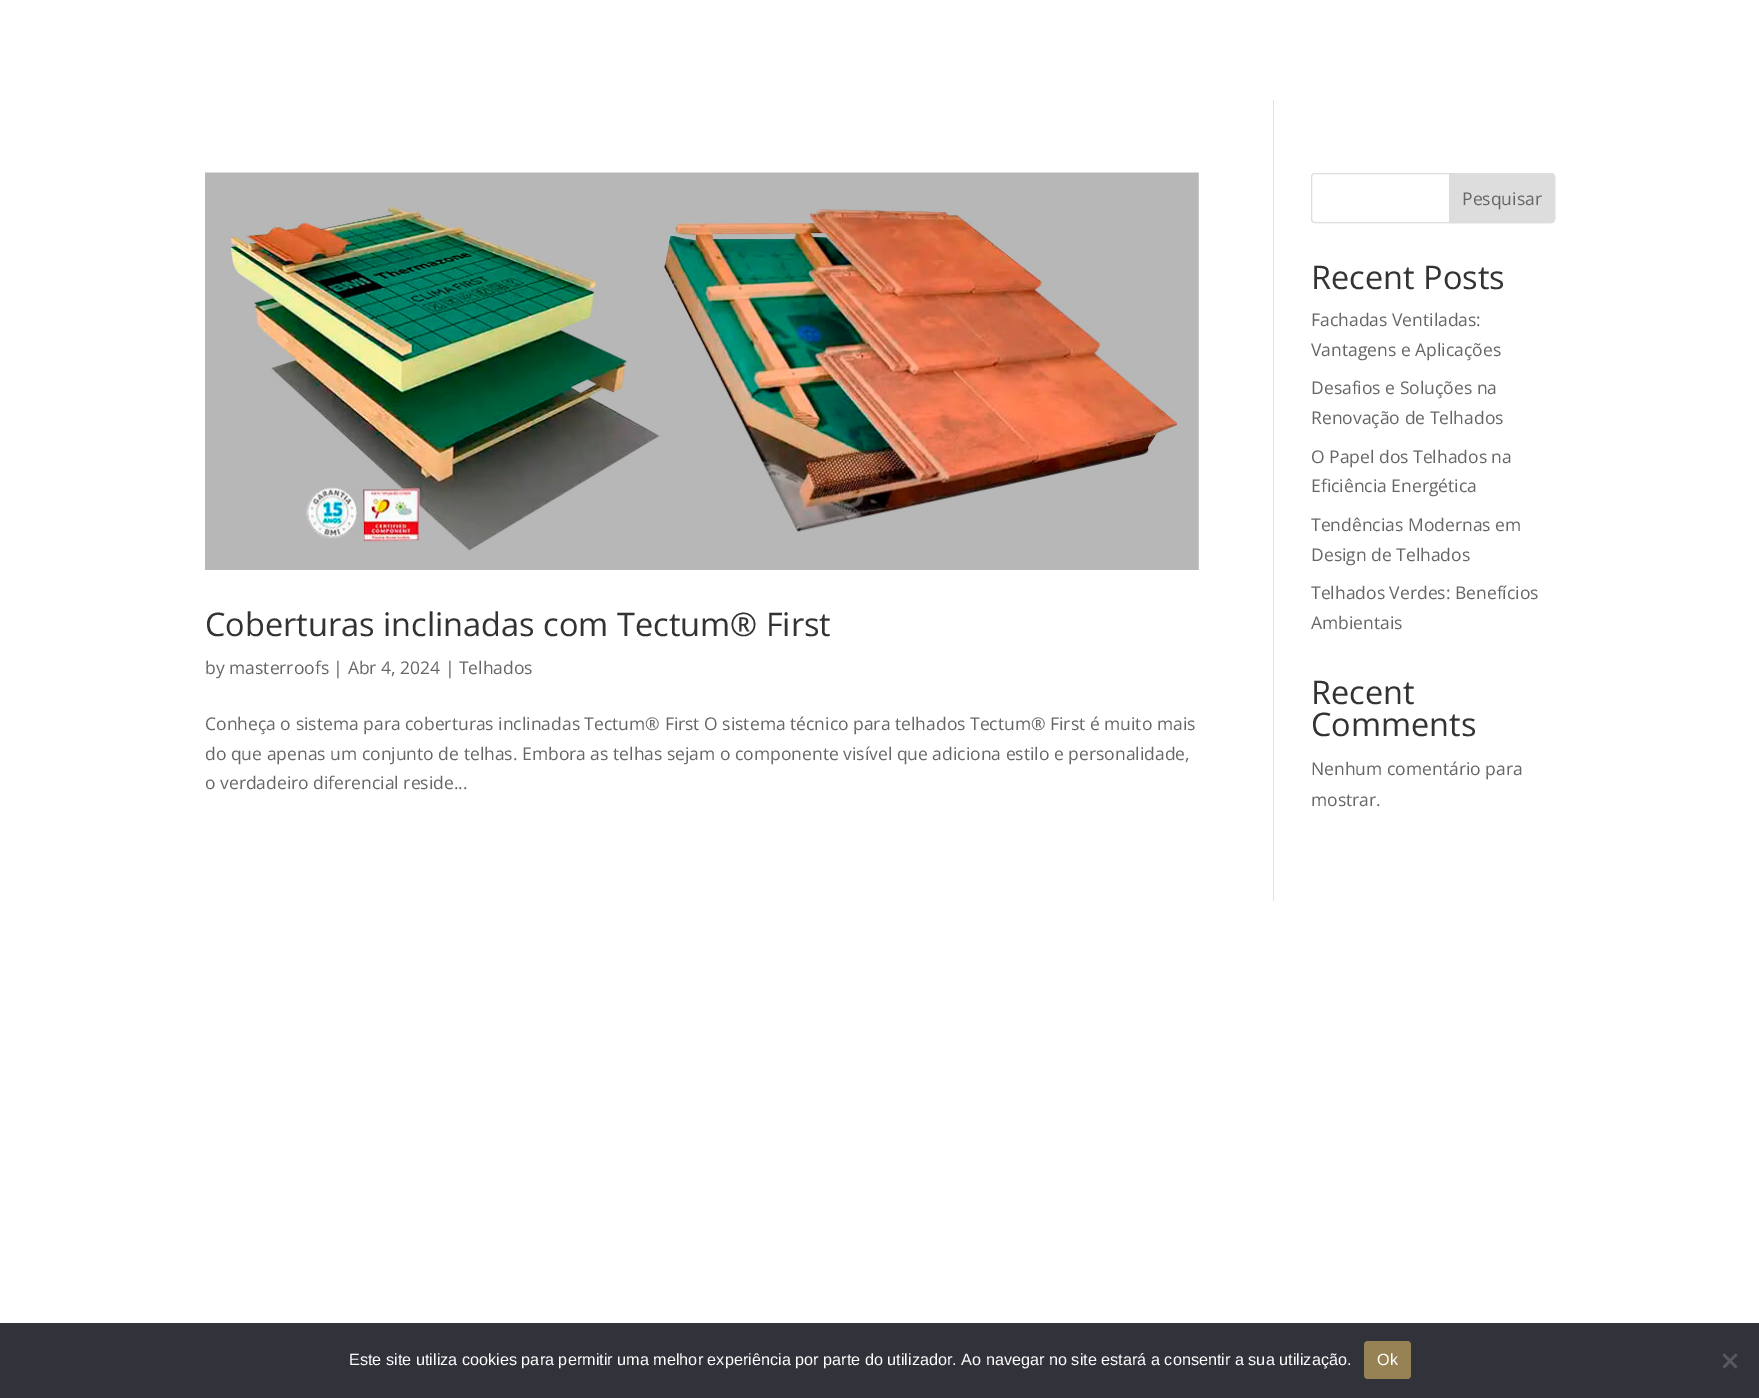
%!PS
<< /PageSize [1759 1398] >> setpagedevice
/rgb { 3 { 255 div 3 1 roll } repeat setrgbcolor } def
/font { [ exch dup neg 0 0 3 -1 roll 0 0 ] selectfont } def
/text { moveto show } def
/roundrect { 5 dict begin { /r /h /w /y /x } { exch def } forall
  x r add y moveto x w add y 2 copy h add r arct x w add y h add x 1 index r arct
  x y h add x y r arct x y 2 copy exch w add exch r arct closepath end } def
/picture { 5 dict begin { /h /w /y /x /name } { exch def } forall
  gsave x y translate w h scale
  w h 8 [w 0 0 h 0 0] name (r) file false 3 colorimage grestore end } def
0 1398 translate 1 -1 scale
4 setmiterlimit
255 255 255 rgb
0 0 1759 1398 rectfill
226 226 226 rgb
1273 100 1 801 rectfill
(img_01.rgb) 205 172 994 398 picture
221 221 221 rgb
1311.5 173.5 243 49 3.5 roundrect stroke
1449.5 173.5 moveto 101.5 0 rlineto 2 0 3.5 1.5 3.5 3.5 rcurveto 0 42 rlineto 0 2 -1.5 3.5 -3.5 3.5 rcurveto -101.5 0 rlineto closepath gsave fill grestore
stroke
50 50 58 rgb
0 1323 1759 75 rectfill
150 130 84 rgb
1364 1341 47 38 4 roundrect fill
89 89 93 rgb
1735.5 1353.5 moveto 2 1.5 rlineto -13 13.5 rlineto -2 -2 rlineto closepath fill
1722.5 1355 moveto 2 -1.5 rlineto 13 13 rlineto -2 2 rlineto closepath fill
/OpenSans-Regular 32.5 font
51 51 51 rgb
(Coberturas inclinadas com Tectum® First) 205 636 text
/OpenSans-Regular 17.5 font
102 102 102 rgb
(by masterroofs | Abr 4, 2024 | Telhados) 205 674 text
(Conheça o sistema para coberturas inclinadas Tectum® First O sistema técnico para telhados Tectum® First é muito mais) 205 730 text
(do que apenas um conjunto de telhas. Embora as telhas sejam o componente visível que adiciona estilo e personalidade,) 205 760 text
(o verdadeiro diferencial reside...) 205 789 text
(Pesquisar) 1462 205 text
/OpenSans-Regular 32.5 font
51 51 51 rgb
(Recent Posts) 1311 289 text
/OpenSans-Regular 17.5 font
102 102 102 rgb
(Fachadas Ventiladas:) 1311 326 text
(Vantagens e Aplicações) 1311 356 text
(Desafios e Soluções na) 1311 394 text
(Renovação de Telhados) 1311 424 text
(O Papel dos Telhados na) 1311 463 text
(Eficiência Energética) 1311 492 text
(Tendências Modernas em) 1311 531 text
(Design de Telhados) 1311 561 text
(Telhados Verdes: Benefícios) 1311 599 text
(Ambientais) 1311 629 text
/OpenSans-Regular 32.5 font
51 51 51 rgb
(Recent) 1311 704 text
(Comments) 1311 736 text
/OpenSans-Regular 17.5 font
102 102 102 rgb
(Nenhum comentário para) 1311 775 text
(mostrar.) 1311 806 text
/LiberationSans-Regular 16.25 font
255 255 255 rgb
(Este site utiliza cookies para permitir uma melhor experiência por parte do utilizador. Ao navegar no site estará a consentir a sua utilização.) 349 1365 text
(Ok) 1377 1365 text
showpage
